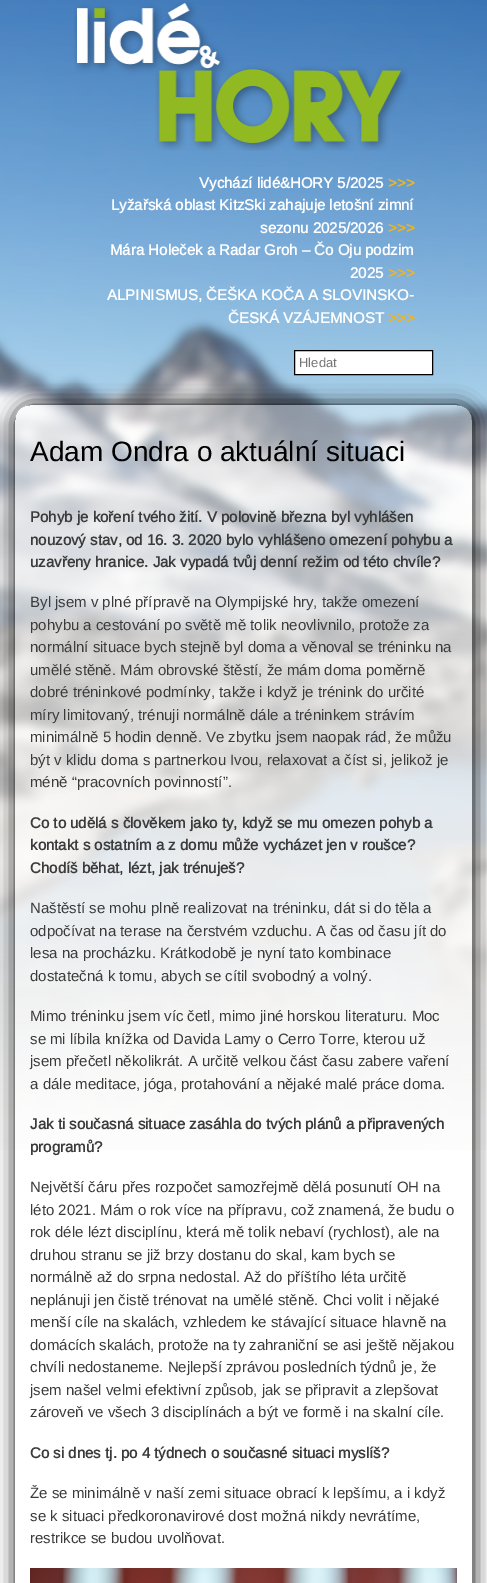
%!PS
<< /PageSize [487 1583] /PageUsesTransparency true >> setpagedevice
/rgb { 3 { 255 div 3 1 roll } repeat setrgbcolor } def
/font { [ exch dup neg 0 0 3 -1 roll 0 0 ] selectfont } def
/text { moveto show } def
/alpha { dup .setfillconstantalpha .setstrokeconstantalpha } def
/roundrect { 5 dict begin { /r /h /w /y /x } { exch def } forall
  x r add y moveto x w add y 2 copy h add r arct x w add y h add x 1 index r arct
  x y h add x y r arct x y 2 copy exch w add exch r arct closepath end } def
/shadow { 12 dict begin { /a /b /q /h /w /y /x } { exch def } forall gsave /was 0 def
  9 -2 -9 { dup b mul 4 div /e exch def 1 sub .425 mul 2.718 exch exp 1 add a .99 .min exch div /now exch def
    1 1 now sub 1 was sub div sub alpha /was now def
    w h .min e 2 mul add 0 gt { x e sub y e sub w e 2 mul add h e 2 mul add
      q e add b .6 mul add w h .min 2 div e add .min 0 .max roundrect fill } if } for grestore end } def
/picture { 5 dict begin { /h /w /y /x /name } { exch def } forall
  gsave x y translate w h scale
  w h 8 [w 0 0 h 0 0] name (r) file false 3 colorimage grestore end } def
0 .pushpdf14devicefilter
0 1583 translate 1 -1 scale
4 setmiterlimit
255 255 255 rgb
0 0 487 1583 rectfill
(img_01.rgb) 0 0 487 1150 picture
(img_02.rgb) 74 2 334 149 picture
294.5 350.5 moveto 138 0 rlineto 0 24 rlineto -138 0 rlineto closepath gsave fill grestore
0 0 0 rgb
stroke
gsave
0 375 moveto 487 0 rlineto 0 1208 rlineto -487 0 rlineto closepath 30 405 moveto 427 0 rlineto 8.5 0 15 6.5 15 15 rcurveto 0 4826 rlineto 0 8.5 -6.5 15 -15 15 rcurveto -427 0 rlineto -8.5 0 -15 -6.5 -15 -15 rcurveto 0 -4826 rlineto 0 -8.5 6.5 -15 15 -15 rcurveto closepath eoclip newpath
16 406 457 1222 15 10 1 shadow
grestore
0.3 alpha
255 255 255 rgb
15 405 457 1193 15 roundrect fill
1 alpha
(img_03.rgb) 30 1568 427 15 picture
/Arimo-Bold 15 font
255 254 255 rgb
(Vychází lidé&HORY 5/2025) 199 188 text
239 181 26 rgb
(>>>) 388 188 text
255 254 255 rgb
(Lyžařská oblast KitzSki zahajuje letošní zimní) 111 210 text
(sezonu 2025/2026) 260 233 text
239 181 26 rgb
(>>>) 388 233 text
255 254 255 rgb
(Mára Holeček a Radar Groh – Čo Oju podzim) 110 255 text
(2025) 350 278 text
239 181 26 rgb
(>>>) 388 278 text
255 254 255 rgb
(ALPINISMUS, ČEŠKA KOČA A SLOVINSKO-) 107 300 text
(ČESKÁ VZÁJEMNOST) 228 323 text
239 181 26 rgb
(>>>) 388 323 text
/Arimo-Regular 13 font
117 117 117 rgb
(Hledat) 299 367 text
/Arimo-Regular 28 font
0 0 0 rgb
(Adam Ondra o aktuální situaci) 30 461 text
/Arimo-Bold 15 font
59 59 59 rgb
(Pohyb je koření tvého žití. V polovině března byl vyhlášen) 30 522 text
(nouzový stav, od 16. 3. 2020 bylo vyhlášeno omezení pohybu a) 30 545 text
(uzavřeny hranice. Jak vypadá tvůj denní režim od této chvíle?) 30 567 text
/Arimo-Regular 15 font
(Byl jsem v plné přípravě na Olympijské hry, takže omezení) 30 607 text
(pohybu a cestování po světě mě tolik neovlivnilo, protože za) 30 630 text
(normální situace bych stejně byl doma a věnoval se tréninku na) 30 652 text
(umělé stěně. Mám obrovské štěstí, že mám doma poměrně) 30 675 text
(dobré tréninkové podmínky, takže i když je trénink do určité) 30 697 text
(míry limitovaný, trénuji normálně dále a tréninkem strávím) 30 720 text
(minimálně 5 hodin denně. Ve zbytku jsem naopak rád, že můžu) 30 742 text
(být v klidu doma s partnerkou Ivou, relaxovat a číst si, jelikož je) 30 765 text
(méně “pracovních povinností”.) 30 787 text
/Arimo-Bold 15 font
(Co to udělá s člověkem jako ty, když se mu omezen pohyb a) 30 828 text
(kontakt s ostatním a z domu může vycházet jen v roušce?) 30 850 text
(Chodíš běhat, lézt, jak trénuješ?) 30 873 text
/Arimo-Regular 15 font
(Naštěstí se mohu plně realizovat na tréninku, dát si do těla a) 30 913 text
(odpočívat na terase na čerstvém vzduchu. A čas od času jít do) 30 936 text
(lesa na procházku. Krátkodobě je nyní tato kombinace) 30 958 text
(dostatečná k tomu, abych se cítil svobodný a volný.) 30 981 text
(Mimo tréninku jsem víc četl, mimo jiné horskou literaturu. Moc) 30 1021 text
(se mi líbila knížka od Davida Lamy o Cerro Torre, kterou už) 30 1044 text
(jsem přečetl několikrát. A určitě velkou část času zabere vaření) 30 1066 text
(a dále meditace, jóga, protahování a nějaké malé práce doma.) 30 1089 text
/Arimo-Bold 15 font
(Jak ti současná situace zasáhla do tvých plánů a připravených) 30 1129 text
(programů?) 30 1152 text
/Arimo-Regular 15 font
(Největší čáru přes rozpočet samozřejmě dělá posunutí OH na) 30 1192 text
(léto 2021. Mám o rok více na přípravu, což znamená, že budu o) 30 1215 text
(rok déle lézt disciplínu, která mě tolik nebaví \(rychlost\), ale na) 30 1237 text
(druhou stranu se již brzy dostanu do skal, kam bych se) 30 1260 text
(normálně až do srpna nedostal. Až do příštího léta určitě) 30 1282 text
(neplánuji jen čistě trénovat na umělé stěně. Chci volit i nějaké) 30 1305 text
(menší cíle na skalách, vzhledem ke stávající situace hlavně na) 30 1327 text
(domácích skalách, protože na ty zahraniční se asi ještě nějakou) 30 1350 text
(chvíli nedostaneme. Nejlepší zprávou posledních týdnů je, že) 30 1372 text
(jsem našel velmi efektivní způsob, jak se připravit a zlepšovat) 30 1395 text
(zároveň ve všech 3 disciplínách a být ve formě i na skalní cíle.) 30 1417 text
/Arimo-Bold 15 font
(Co si dnes tj. po 4 týdnech o současné situaci myslíš?) 30 1458 text
/Arimo-Regular 15 font
(Že se minimálně v naší zemi situace obrací k lepšímu, a i když) 30 1498 text
(se k situaci předkoronavirové dost možná nikdy nevrátíme,) 30 1521 text
(restrikce se budou uvolňovat.) 30 1543 text
.poppdf14devicefilter showpage
